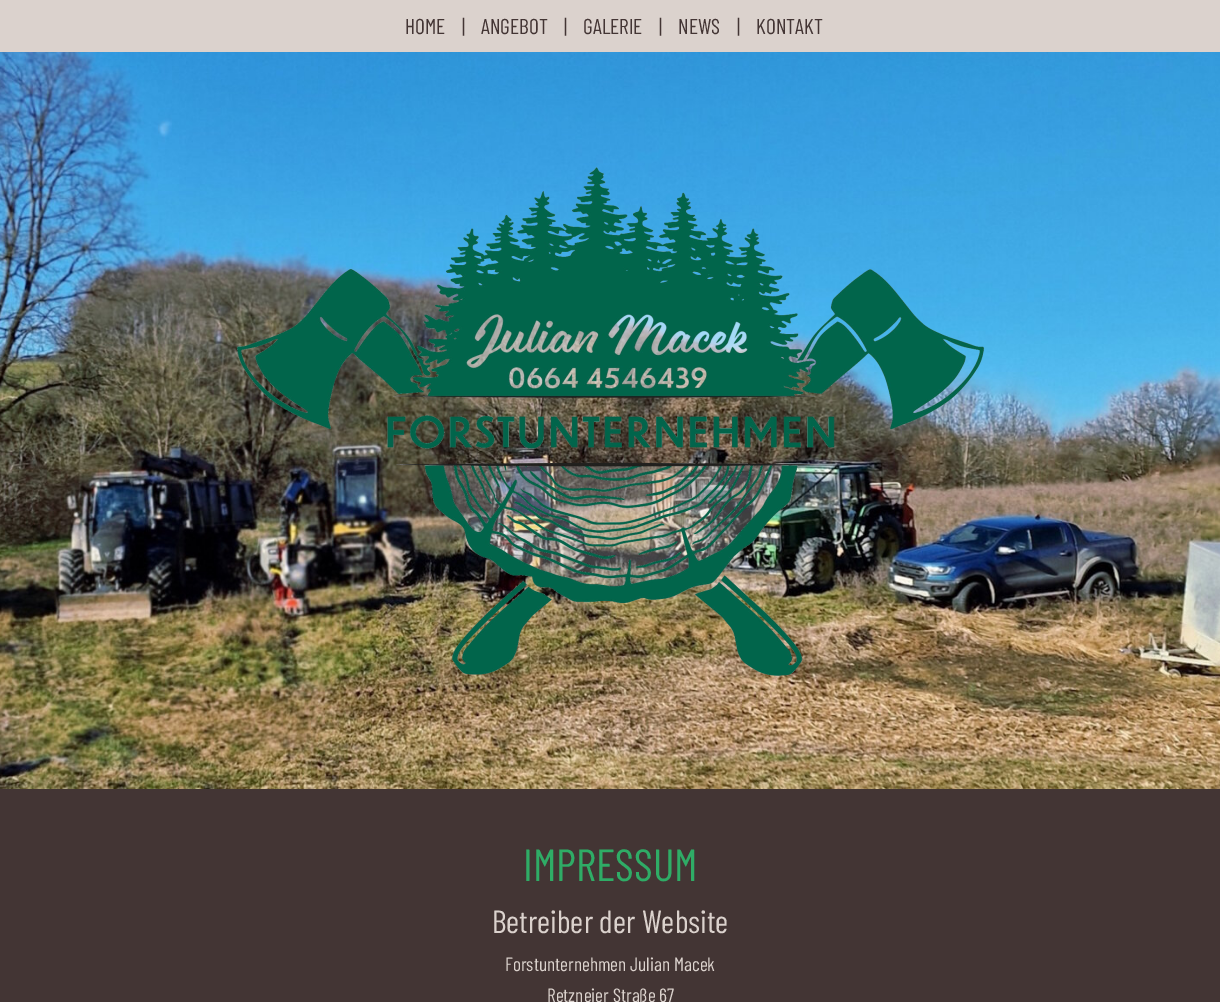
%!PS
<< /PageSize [1220 1002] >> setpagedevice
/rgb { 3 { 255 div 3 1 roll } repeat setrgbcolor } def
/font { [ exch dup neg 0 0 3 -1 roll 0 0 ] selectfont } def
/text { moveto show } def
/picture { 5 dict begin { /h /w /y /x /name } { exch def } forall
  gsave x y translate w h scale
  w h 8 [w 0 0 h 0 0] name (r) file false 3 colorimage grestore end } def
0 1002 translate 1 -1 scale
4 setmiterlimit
67 53 52 rgb
0 0 1220 1002 rectfill
219 210 205 rgb
0 0 1220 52 rectfill
(img_01.rgb) 0 52 1220 737 picture
(img_02.rgb) 237 167 748 509 picture
/BarlowCondensed-Regular 21.5 font
67 53 52 rgb
(HOME) 405 34 text
(|) 462 34 text
(ANGEBOT) 481 34 text
(|) 564 34 text
(GALERIE) 583 34 text
(|) 659 34 text
(NEWS) 678 34 text
(|) 737 34 text
(KONTAKT) 756 34 text
/BarlowCondensed-Regular 45 font
47 172 102 rgb
(IMPRESSUM) 523 881 text
/BarlowCondensed-Regular 32 font
219 210 205 rgb
(Betreiber der Website) 492 933 text
/BarlowCondensed-Regular 19.25 font
(Forstunternehmen Julian Macek) 505 971 text
(Retzneier Straße 67) 547 1002 text
showpage
